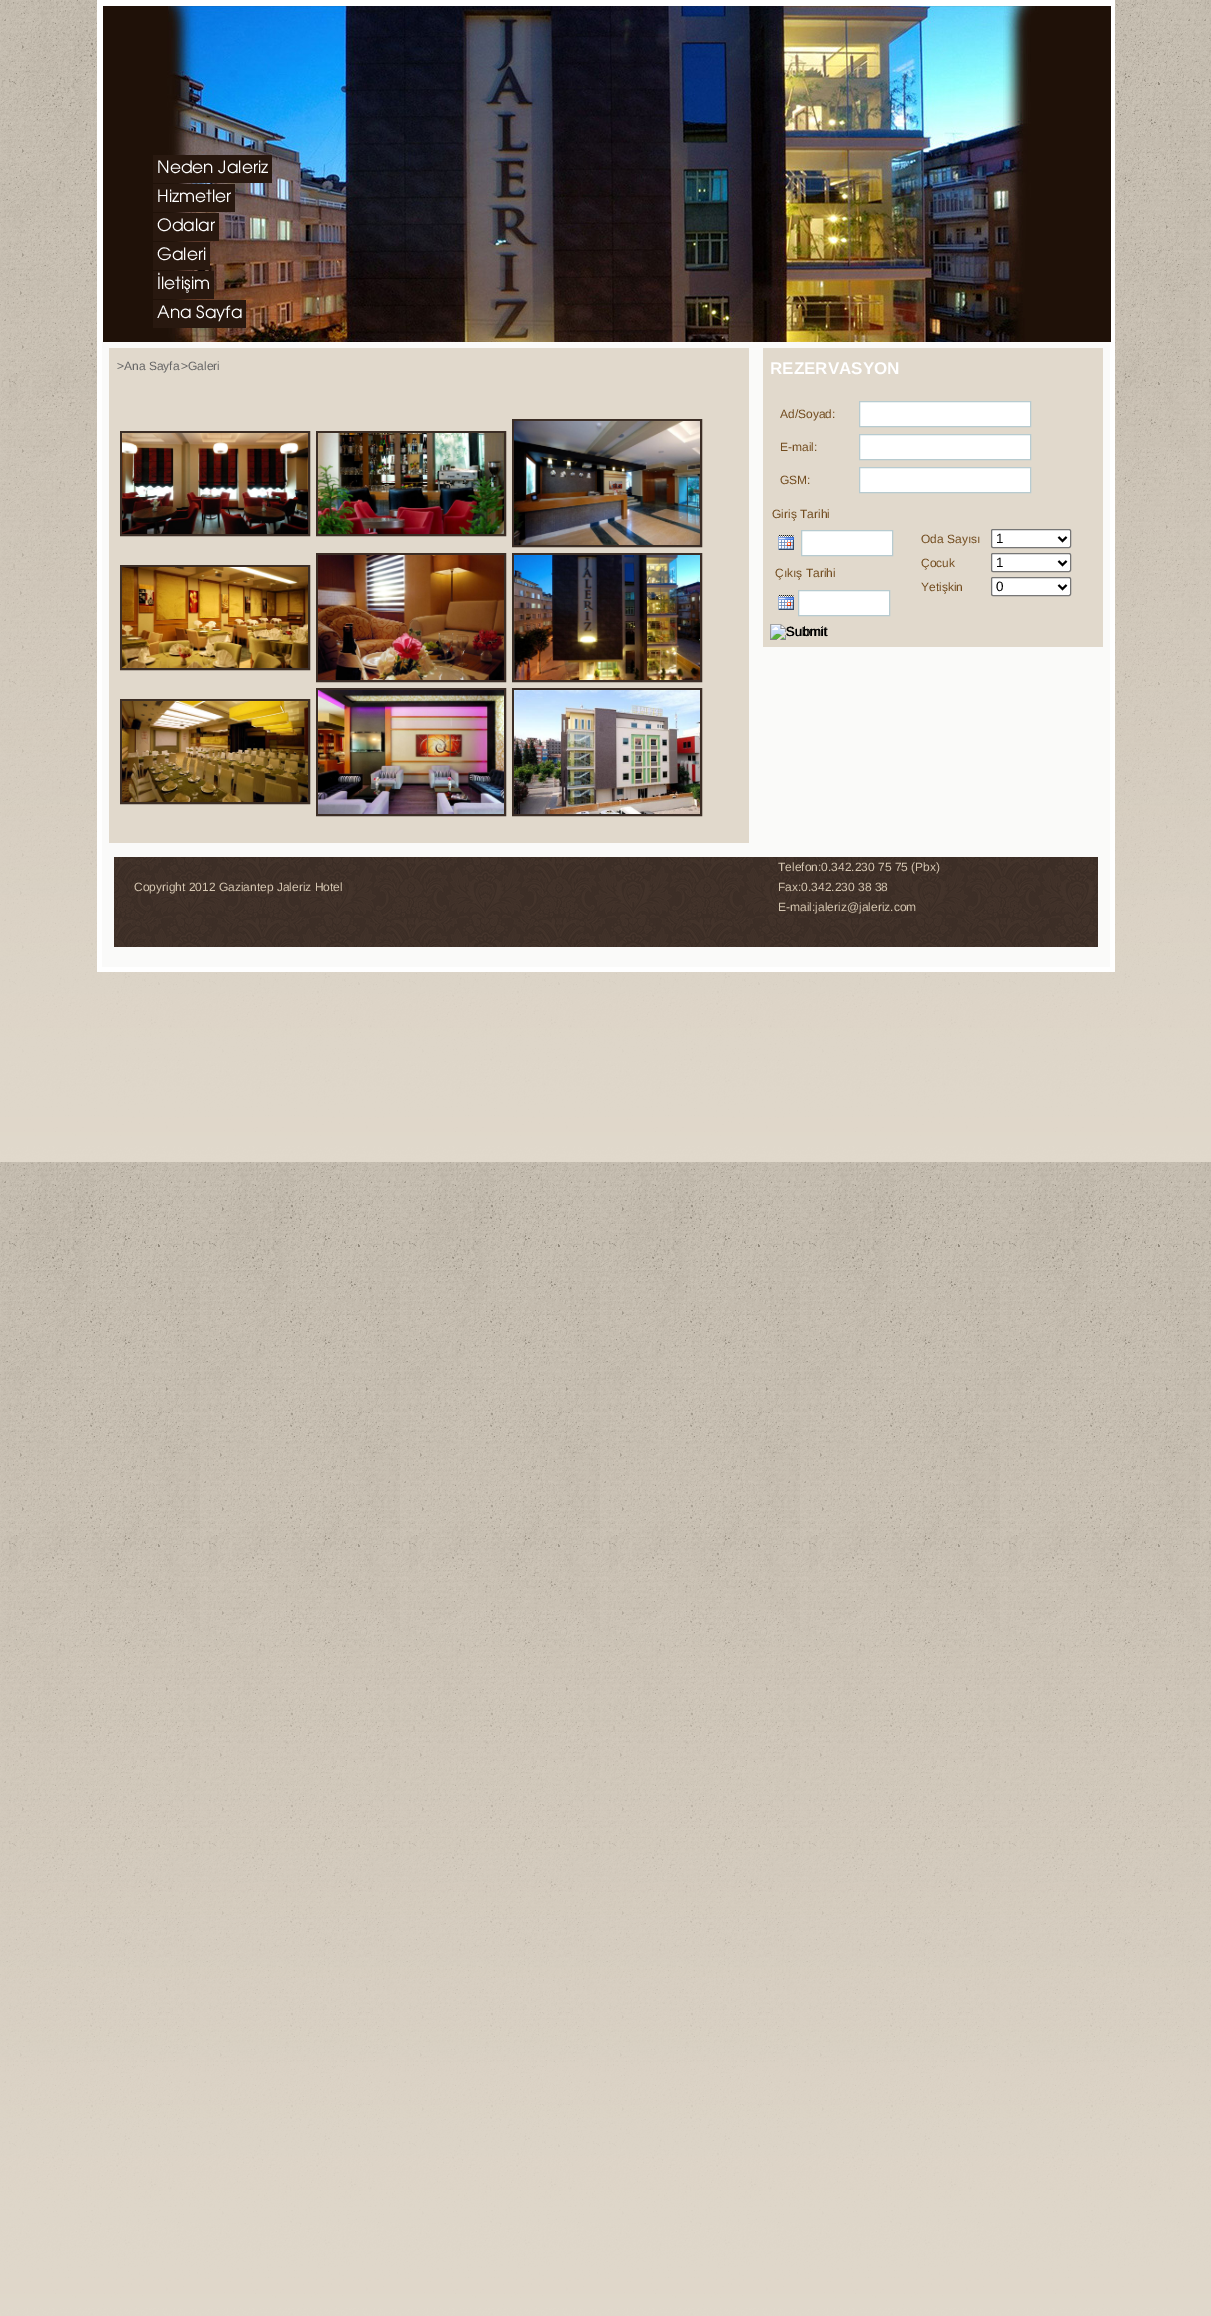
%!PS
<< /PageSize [1211 2316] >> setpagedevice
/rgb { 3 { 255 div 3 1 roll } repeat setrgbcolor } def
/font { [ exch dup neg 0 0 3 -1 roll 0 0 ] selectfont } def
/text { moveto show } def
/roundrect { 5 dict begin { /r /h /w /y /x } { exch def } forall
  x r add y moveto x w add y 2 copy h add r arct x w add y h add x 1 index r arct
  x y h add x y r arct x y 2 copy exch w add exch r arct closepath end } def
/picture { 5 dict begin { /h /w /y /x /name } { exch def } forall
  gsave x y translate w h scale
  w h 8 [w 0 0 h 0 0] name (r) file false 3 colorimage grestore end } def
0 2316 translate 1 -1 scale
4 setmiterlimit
255 255 255 rgb
0 0 1211 2316 rectfill
(img_01.rgb) 0 0 1211 2316 picture
97 0 1018 972 rectfill
250 250 249 rgb
102 341 1008 626 rectfill
(img_02.rgb) 103 6 1008 336 picture
40 24 15 rgb
153 155 119 28 rectfill
153 184 82 28 rectfill
153 213 66 28 rectfill
153 242 57 28 rectfill
153 271 61 28 rectfill
153 300 93 28 rectfill
225 217 204 rgb
109 348 640 495 rectfill
59 45 37 rgb
2 setlinewidth
121 432 188 103 rectstroke
(img_03.rgb) 122 433 186 101 picture
317 432 188 103 rectstroke
(img_04.rgb) 318 433 186 101 picture
513 420 188 126 rectstroke
(img_05.rgb) 514 421 186 124 picture
121 566 188 103 rectstroke
(img_06.rgb) 122 567 186 101 picture
317 554 188 127 rectstroke
(img_07.rgb) 318 555 186 125 picture
513 554 188 127 rectstroke
(img_08.rgb) 514 555 186 125 picture
121 700 188 103 rectstroke
(img_09.rgb) 122 701 186 101 picture
317 689 188 126 rectstroke
(img_10.rgb) 318 690 186 124 picture
513 689 188 126 rectstroke
(img_11.rgb) 514 690 186 124 picture
225 217 204 rgb
763 348 340 299 rectfill
255 255 255 rgb
859.5 401.5 moveto 171 0 rlineto 0 25 rlineto -171 0 rlineto closepath gsave fill grestore
183 203 208 rgb
1 setlinewidth
stroke
255 255 255 rgb
859.5 434.5 moveto 171 0 rlineto 0 25 rlineto -171 0 rlineto closepath gsave fill grestore
183 203 208 rgb
stroke
255 255 255 rgb
859.5 467.5 moveto 171 0 rlineto 0 25 rlineto -171 0 rlineto closepath gsave fill grestore
183 203 208 rgb
stroke
(img_12.rgb) 778 535 16 15 picture
255 255 255 rgb
801.5 530.5 moveto 91 0 rlineto 0 25 rlineto -91 0 rlineto closepath gsave fill grestore
183 203 208 rgb
stroke
(img_12.rgb) 778 595 16 15 picture
255 255 255 rgb
798.5 590.5 moveto 91 0 rlineto 0 25 rlineto -91 0 rlineto closepath gsave fill grestore
183 203 208 rgb
stroke
255 255 255 rgb
991.5 529.5 79 18 1.5 roundrect gsave fill grestore
118 118 118 rgb
stroke
0 0 0 rgb
2 setlinewidth
1058.5 537 moveto 4 4 rlineto 4 -4 rlineto stroke
255 255 255 rgb
991.5 553.5 79 18 1.5 roundrect gsave fill grestore
118 118 118 rgb
1 setlinewidth
stroke
0 0 0 rgb
2 setlinewidth
1058.5 561 moveto 4 4 rlineto 4 -4 rlineto stroke
255 255 255 rgb
991.5 577.5 79 18 1.5 roundrect gsave fill grestore
118 118 118 rgb
1 setlinewidth
stroke
0 0 0 rgb
2 setlinewidth
1058.5 585 moveto 4 4 rlineto 4 -4 rlineto stroke
(img_13.rgb) 770 624 57 16 picture
(img_14.rgb) 114 857 984 90 picture
/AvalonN-Regular 17 font
255 255 255 rgb
(Neden Jaleriz) 157 173 text
(Hizmetler) 157 202 text
(Odalar) 157 231 text
(Galeri) 157 260 text
(İletişim) 157 289 text
(Ana Sayfa) 157 318 text
/LiberationSans-Regular 12 font
102 102 102 rgb
(>Ana Sayfa) 117 370 text
(>Galeri) 181 370 text
/LiberationSans-Bold 17 font
255 255 255 rgb
(REZERVASYON) 770 374 text
/LiberationSans-Regular 12 font
114 76 31 rgb
(Ad/Soyad:) 780 418 text
(E-mail:) 780 451 text
(GSM:) 780 484 text
(Giriş Tarihi) 772 518 text
(Çıkış Tarihi) 775 577 text
(Oda Sayısı) 921 543 text
/LiberationSans-Regular 13.5 font
0 0 0 rgb
(1) 996 543 text
/LiberationSans-Regular 12 font
114 76 31 rgb
(Çocuk) 921 567 text
/LiberationSans-Regular 13.5 font
0 0 0 rgb
(1) 996 567 text
/LiberationSans-Regular 12 font
114 76 31 rgb
(Yetişkin) 921 591 text
/LiberationSans-Regular 13.5 font
0 0 0 rgb
(0) 996 591 text
(Submit) 786 636 text
/LiberationSans-Regular 12 font
213 198 177 rgb
(Copyright 2012 Gaziantep Jaleriz Hotel) 134 891 text
(Telefon:0.342.230 75 75 \(Pbx\)) 778 871 text
(Fax:0.342.230 38 38) 778 891 text
(E-mail:jaleriz@jaleriz.com) 778 911 text
showpage
